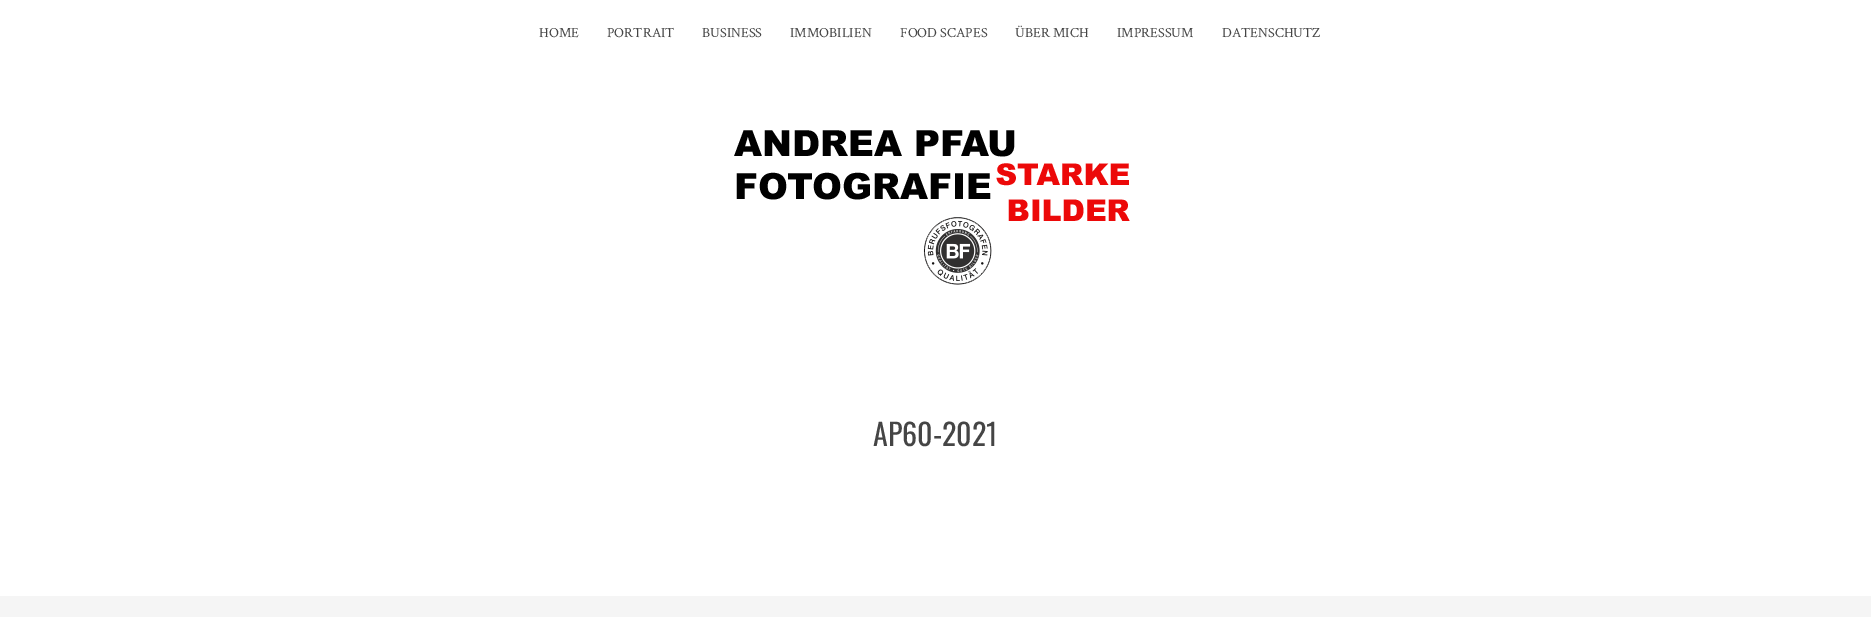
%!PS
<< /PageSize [1871 617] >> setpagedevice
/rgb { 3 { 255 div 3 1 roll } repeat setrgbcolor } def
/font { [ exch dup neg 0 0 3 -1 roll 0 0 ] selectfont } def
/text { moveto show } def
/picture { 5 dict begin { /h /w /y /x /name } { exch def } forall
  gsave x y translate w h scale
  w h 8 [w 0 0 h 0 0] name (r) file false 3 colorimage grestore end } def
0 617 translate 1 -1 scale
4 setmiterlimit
255 255 255 rgb
0 0 1871 617 rectfill
(img_01.rgb) 734 130 396 155 picture
245 245 245 rgb
0 596 1871 21 rectfill
/CrimsonText-Regular 14 font
69 69 69 rgb
(HOME) 539 37 text
(PORTRAIT) 607 37 text
(BUSINESS) 702 37 text
(IMMOBILIEN) 790 37 text
(FOOD SCAPES) 900 37 text
(ÜBER MICH) 1015 37 text
(IMPRESSUM) 1117 37 text
(DATENSCHUTZ) 1222 37 text
/Oswald-Regular 30 font
(AP60-2021) 873 446 text
showpage
